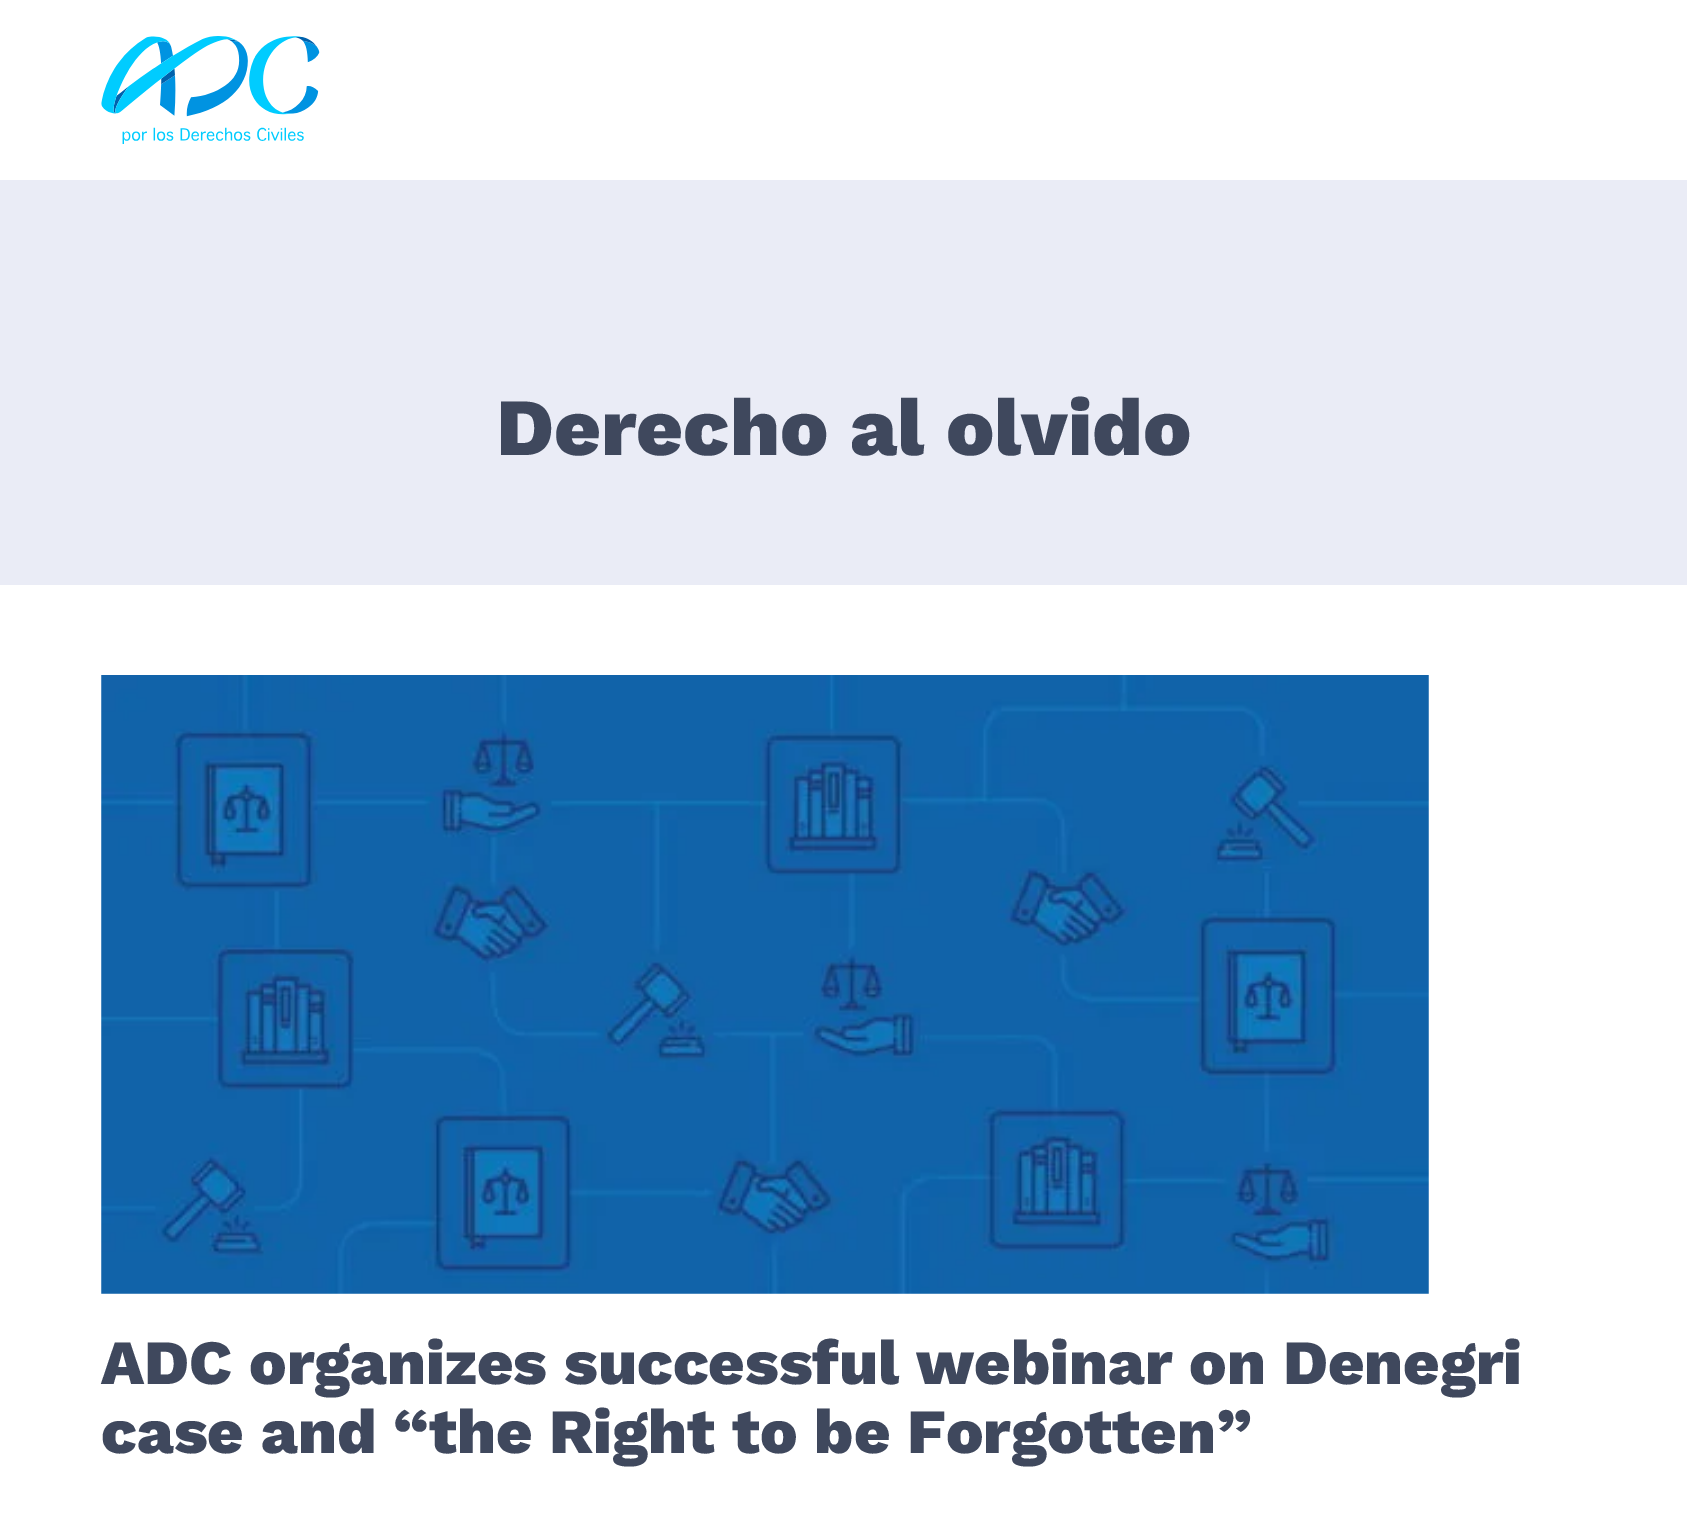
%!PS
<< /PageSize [1687 1535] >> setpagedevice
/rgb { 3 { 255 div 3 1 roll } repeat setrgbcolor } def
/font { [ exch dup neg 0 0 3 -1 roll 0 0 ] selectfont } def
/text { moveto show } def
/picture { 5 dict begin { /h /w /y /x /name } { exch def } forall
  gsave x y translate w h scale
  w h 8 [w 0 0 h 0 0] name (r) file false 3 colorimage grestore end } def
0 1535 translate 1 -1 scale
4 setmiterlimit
255 255 255 rgb
0 0 1687 1535 rectfill
(img_01.rgb) 101 36 219 108 picture
234 236 246 rgb
0 180 1687 405 rectfill
(img_02.rgb) 101 675 1328 619 picture
/WorkSans-ExtraBold 81 font
63 72 93 rgb
(Derecho al olvido) 496 455 text
/WorkSans-ExtraBold 63 font
(ADC organizes successful webinar on Denegri) 101 1384 text
(case and “the Right to be Forgotten”) 101 1453 text
showpage
